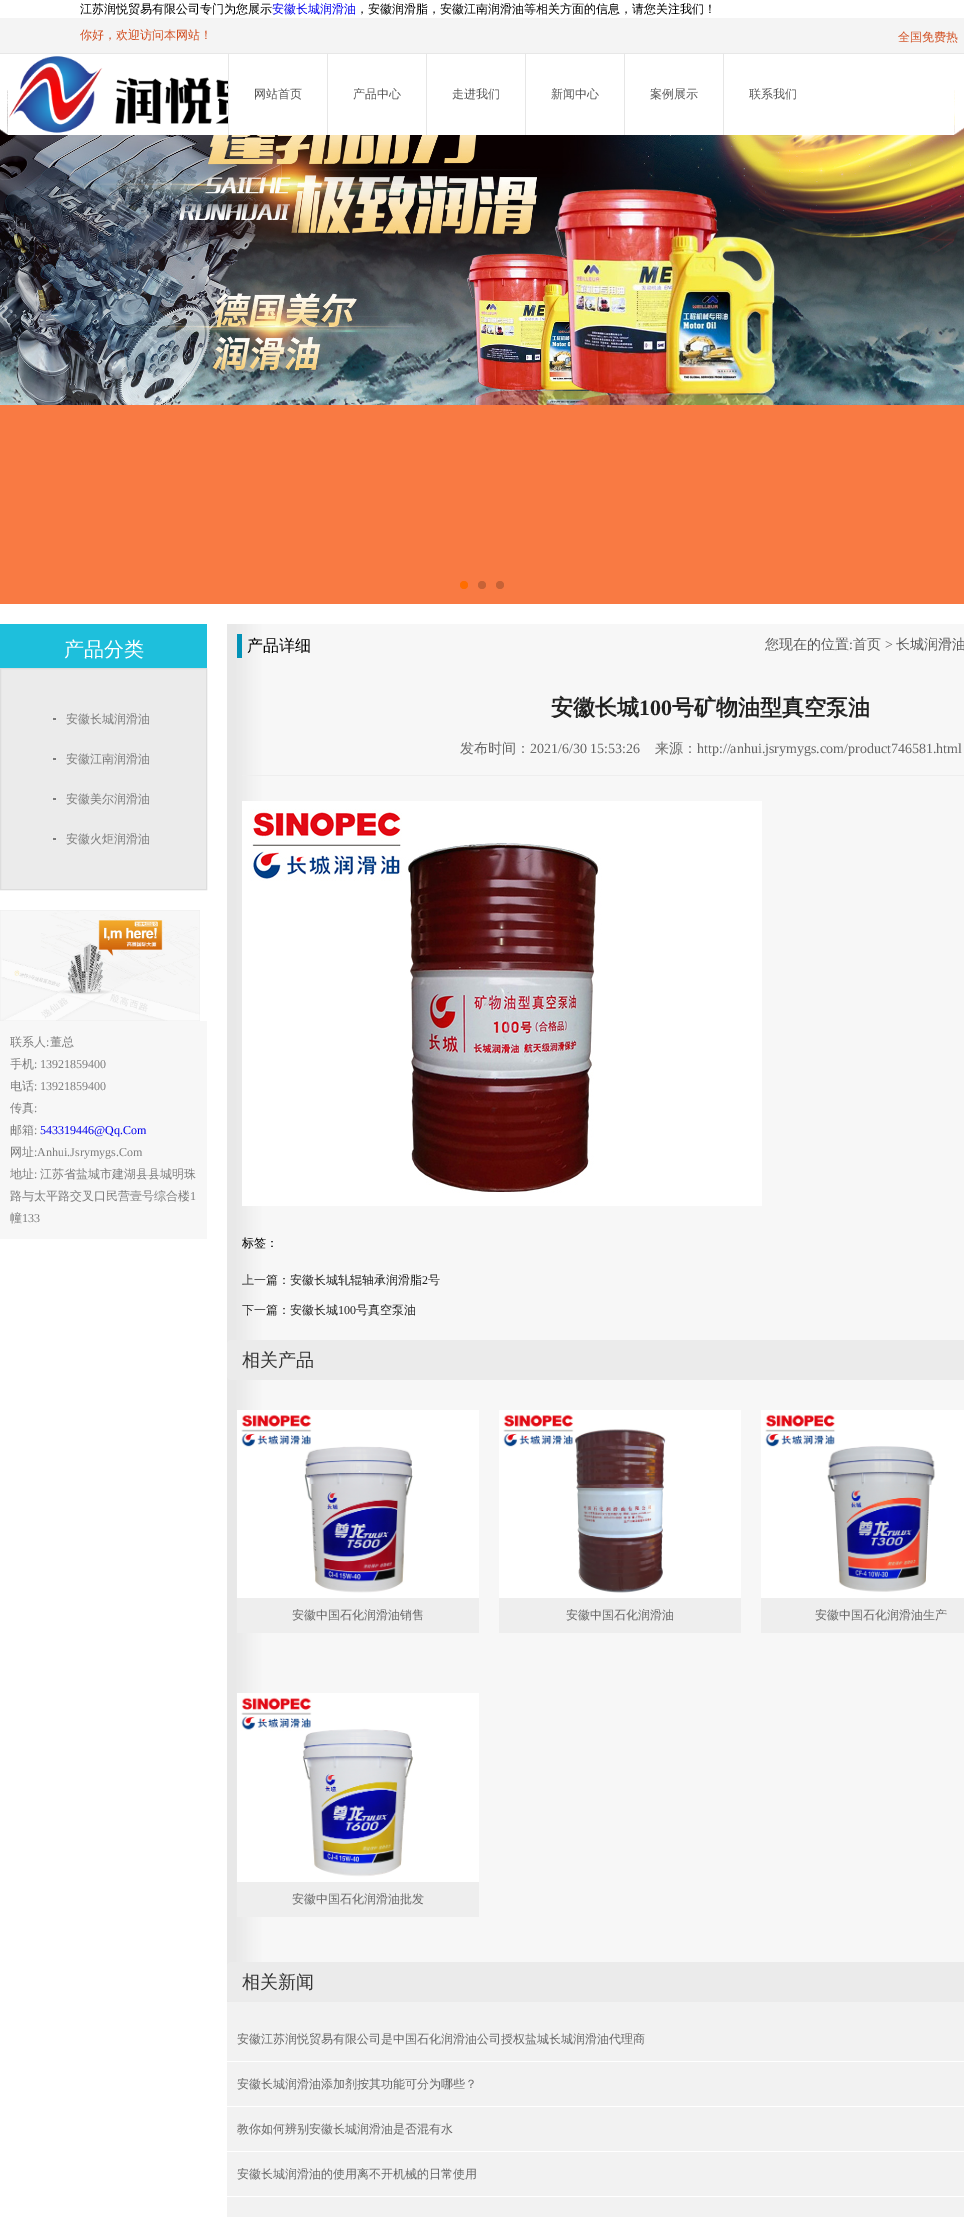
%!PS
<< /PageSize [964 2237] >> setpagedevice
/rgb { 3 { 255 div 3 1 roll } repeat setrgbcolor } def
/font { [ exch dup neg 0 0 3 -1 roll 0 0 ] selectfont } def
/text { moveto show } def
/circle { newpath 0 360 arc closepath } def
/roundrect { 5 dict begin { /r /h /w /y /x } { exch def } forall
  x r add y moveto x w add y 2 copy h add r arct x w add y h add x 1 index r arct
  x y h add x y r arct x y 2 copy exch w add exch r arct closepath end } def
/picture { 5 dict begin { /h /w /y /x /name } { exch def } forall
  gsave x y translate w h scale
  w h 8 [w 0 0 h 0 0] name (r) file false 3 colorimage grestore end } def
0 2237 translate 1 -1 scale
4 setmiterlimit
255 255 255 rgb
0 0 964 2237 rectfill
244 244 244 rgb
0 18 964 35 rectfill
231 231 231 rgb
0 53 964 1 rectfill
(img_04.rgb) 0 90 964 315 picture
(img_01.rgb) 0 90 8 45 picture
255 255 255 rgb
8 90 946 45 rectfill
(img_02.rgb) 8 56 220 77 picture
231 231 231 rgb
228 54 1 81 rectfill
327 54 1 81 rectfill
426 54 1 81 rectfill
525 54 1 81 rectfill
624 54 1 81 rectfill
723 54 1 81 rectfill
(img_03.rgb) 954 90 10 45 picture
249 122 67 rgb
0 405 964 199 rectfill
255 109 0 rgb
464 585 4 circle fill
199 98 54 rgb
482 585 4 circle fill
500 585 4 circle fill
30 191 220 rgb
0 624 207 44 rectfill
235 235 235 rgb
0.5 668.5 moveto 206 0 rlineto 0 221 rlineto -206 0 rlineto closepath gsave fill grestore
221 221 221 rgb
stroke
(img_05.rgb) 51 715 5 8 picture
(img_05.rgb) 51 755 5 8 picture
(img_05.rgb) 51 795 5 8 picture
(img_05.rgb) 51 835 5 8 picture
(img_06.rgb) 0 910 200 111 picture
247 247 247 rgb
0 1021 207 218 rectfill
(img_07.rgb) 227 624 737 1378 picture
2 146 183 rgb
237 634 5 24 rectfill
238 238 238 rgb
242 775 722 1 rectfill
(img_08.rgb) 242 801 520 405 picture
235 235 235 rgb
227 1340 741 40 4 roundrect fill
(img_09.rgb) 237 1410 242 188 picture
238 238 238 rgb
237 1598 242 35 rectfill
(img_10.rgb) 499 1410 242 188 picture
499 1598 242 35 rectfill
(img_11.rgb) 761 1410 203 188 picture
761 1598 203 35 rectfill
(img_12.rgb) 237 1693 242 189 picture
237 1882 242 35 rectfill
235 235 235 rgb
227 1962 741 40 4 roundrect fill
242 242 242 rgb
227 2002 737 215 rectfill
255 255 255 rgb
227 2061 737 1 rectfill
227 2106 737 1 rectfill
227 2151 737 1 rectfill
227 2196 737 1 rectfill
/WenQuanYiZenHei-Medium 12 font
0 0 0 rgb
(江苏润悦贸易有限公司专门为您展示) 80 13 text
0 0 238 rgb
(安徽长城润滑油) 272 13 text
0 0 0 rgb
(，安徽润滑脂，安徽江南润滑油等相关方面的信息，请您关注我们！) 356 13 text
210 79 34 rgb
(你好，欢迎访问本网站！) 80 39 text
(全国免费热) 898 41 text
88 88 88 rgb
(网站首页) 254 98 text
(产品中心) 353 98 text
(走进我们) 452 98 text
(新闻中心) 551 98 text
(案例展示) 650 98 text
(联系我们) 749 98 text
/WenQuanYiZenHei-Medium 20 font
255 255 255 rgb
(产品分类) 64 656 text
/WenQuanYiZenHei-Medium 12 font
124 124 124 rgb
(安徽长城润滑油) 66 723 text
(安徽江南润滑油) 66 763 text
(安徽美尔润滑油) 66 803 text
(安徽火炬润滑油) 66 843 text
(联系人 董总) 10 1046 text
/LiberationSerif-Regular 12 font
(:) 46 1046 text
/WenQuanYiZenHei-Medium 12 font
(手机) 10 1068 text
/LiberationSerif-Regular 12 font
(: 13921859400) 34 1068 text
/WenQuanYiZenHei-Medium 12 font
(电话) 10 1090 text
/LiberationSerif-Regular 12 font
(: 13921859400) 34 1090 text
/WenQuanYiZenHei-Medium 12 font
(传真) 10 1112 text
/LiberationSerif-Regular 12 font
(:) 34 1112 text
/WenQuanYiZenHei-Medium 12 font
(邮箱) 10 1134 text
/LiberationSerif-Regular 12 font
(:) 34 1134 text
0 0 238 rgb
(543319446@Qq.Com) 40 1134 text
/WenQuanYiZenHei-Medium 12 font
124 124 124 rgb
(网址) 10 1156 text
/LiberationSerif-Regular 12 font
(:Anhui.Jsrymygs.Com) 34 1156 text
/WenQuanYiZenHei-Medium 12 font
(地址) 10 1178 text
/LiberationSerif-Regular 12 font
(:) 34 1178 text
/WenQuanYiZenHei-Medium 12 font
(江苏省盐城市建湖县县城明珠) 40 1178 text
(路与太平路交叉口民营壹号综合楼) 10 1200 text
/LiberationSerif-Regular 12 font
(1) 190 1200 text
/WenQuanYiZenHei-Medium 12 font
(幢) 10 1222 text
/LiberationSerif-Regular 12 font
(133) 22 1222 text
/WenQuanYiZenHei-Medium 16 font
0 0 0 rgb
(产品详细) 247 651 text
/WenQuanYiZenHei-Medium 14 font
88 88 88 rgb
(您现在的位置) 765 649 text
/LiberationSerif-Regular 14 font
(:) 849 649 text
/WenQuanYiZenHei-Medium 14 font
(首页) 853 649 text
/LiberationSerif-Regular 14 font
(>) 885 649 text
/WenQuanYiZenHei-Medium 14 font
(长城润滑油) 896 649 text
/WenQuanYiZenHei-Bold 22 font
34 34 34 rgb
(安徽长城) 551 715 text
/LiberationSerif-Bold 22 font
(100) 639 715 text
/WenQuanYiZenHei-Bold 22 font
(号矿物油型真空泵油) 672 715 text
/WenQuanYiZenHei-Medium 14 font
102 102 102 rgb
(发布时间：) 460 753 text
/LiberationSerif-Regular 14 font
(2021/6/30 15:53:26) 530 753 text
/WenQuanYiZenHei-Medium 14 font
(来源：) 655 753 text
/LiberationSerif-Regular 14 font
(http://anhui.jsrymygs.com/product746581.html) 697 753 text
/WenQuanYiZenHei-Medium 12 font
0 0 0 rgb
(标签：) 242 1247 text
34 34 34 rgb
(上一篇：安徽长城轧辊轴承润滑脂) 242 1284 text
/LiberationSerif-Regular 12 font
(2) 422 1284 text
/WenQuanYiZenHei-Medium 12 font
(号) 428 1284 text
(下一篇：安徽长城) 242 1314 text
/LiberationSerif-Regular 12 font
(100) 338 1314 text
/WenQuanYiZenHei-Medium 12 font
(号真空泵油) 356 1314 text
/WenQuanYiZenHei-Medium 18 font
51 51 51 rgb
(相关产品) 242 1366 text
/WenQuanYiZenHei-Medium 12 font
102 102 102 rgb
(安徽中国石化润滑油销售) 292 1619 text
(安徽中国石化润滑油) 566 1619 text
(安徽中国石化润滑油生产) 815 1619 text
(安徽中国石化润滑油批发) 292 1903 text
/WenQuanYiZenHei-Medium 18 font
51 51 51 rgb
(相关新闻) 242 1988 text
/WenQuanYiZenHei-Medium 12 font
102 102 102 rgb
(安徽江苏润悦贸易有限公司是中国石化润滑油公司授权盐城长城润滑油代理商) 237 2043 text
(安徽长城润滑油添加剂按其功能可分为哪些？) 237 2088 text
(教你如何辨别安徽长城润滑油是否混有水) 237 2133 text
(安徽长城润滑油的使用离不开机械的日常使用) 237 2178 text
showpage
